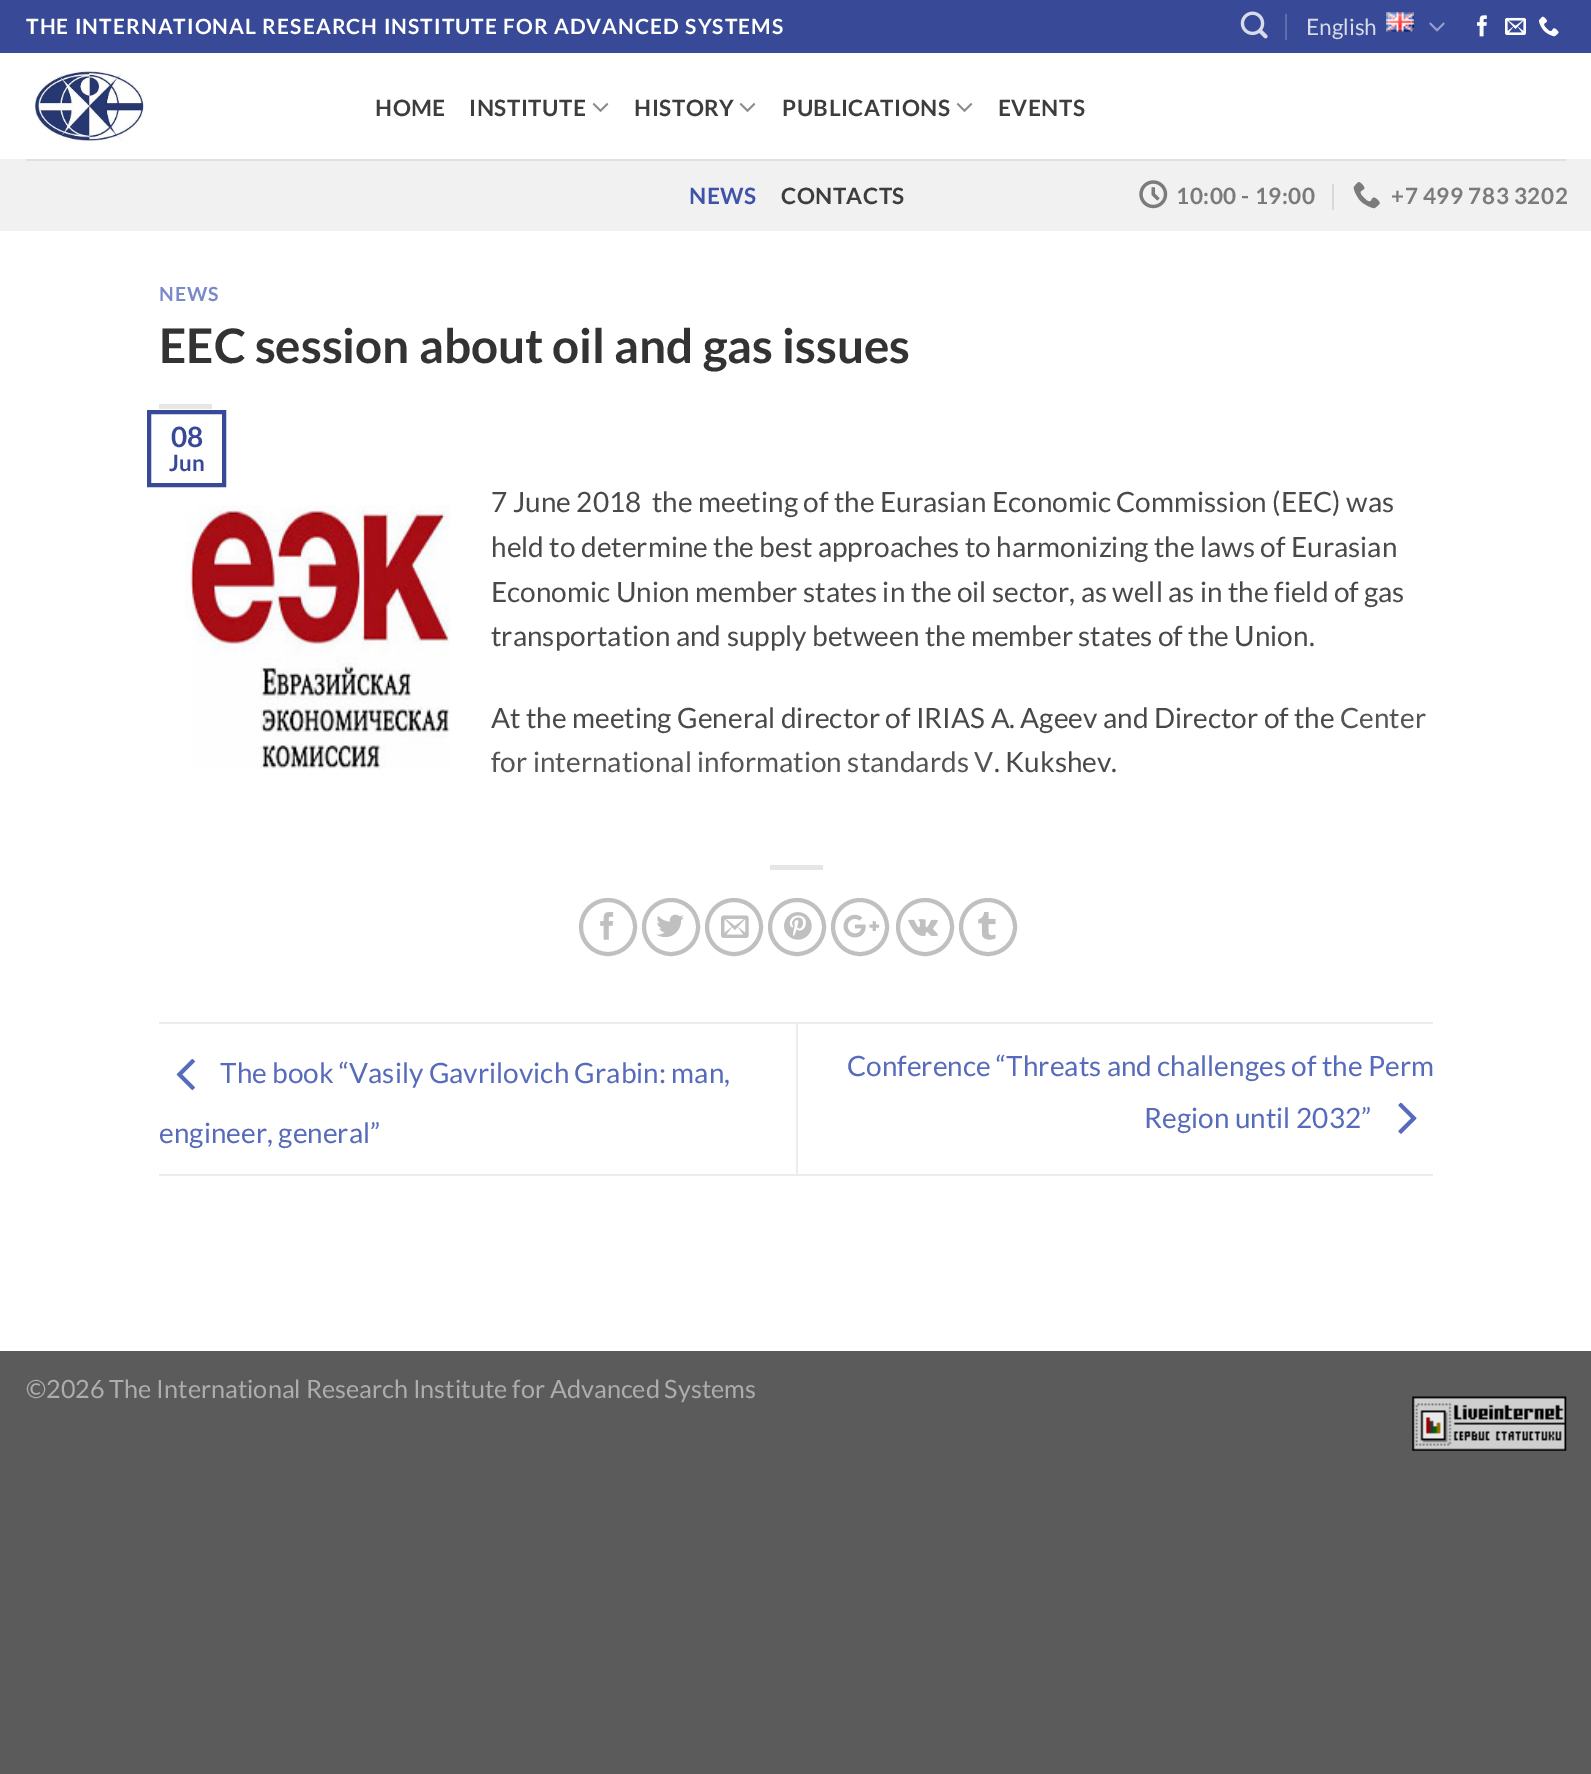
%!PS
<< /PageSize [1591 1774] >> setpagedevice
/rgb { 3 { 255 div 3 1 roll } repeat setrgbcolor } def
/font { [ exch dup neg 0 0 3 -1 roll 0 0 ] selectfont } def
/text { moveto show } def
/circle { newpath 0 360 arc closepath } def
/picture { 5 dict begin { /h /w /y /x /name } { exch def } forall
  gsave x y translate w h scale
  w h 8 [w 0 0 h 0 0] name (r) file false 3 colorimage grestore end } def
0 1774 translate 1 -1 scale
4 setmiterlimit
91 91 91 rgb
0 0 1591 1774 rectfill
255 255 255 rgb
0 53 1591 1298 rectfill
56 74 151 rgb
0 0 1591 53 rectfill
(img_01.rgb) 1240 11 28 28 picture
96 110 172 rgb
1285 14 2 26 rectfill
(img_02.rgb) 1386 12 28 20 picture
(img_03.rgb) 1429 22 16 10 picture
(img_04.rgb) 1477 15 10 22 picture
(img_05.rgb) 1505 17 21 18 picture
(img_06.rgb) 1538 16 21 21 picture
(img_07.rgb) 33 70 111 72 picture
(img_08.rgb) 592 103 17 9 picture
(img_08.rgb) 739 103 17 9 picture
(img_08.rgb) 956 103 17 9 picture
241 241 241 rgb
0 159 1591 72 rectfill
224 224 224 rgb
26 159 1540 2 rectfill
(img_09.rgb) 1139 180 29 29 picture
217 217 217 rgb
1332 184 2 26 rectfill
(img_10.rgb) 1353 182 27 27 picture
230 230 230 rgb
159 404 53 5 rectfill
56 74 151 rgb
4 setlinewidth
149 412 75 73 rectstroke
(img_11.rgb) 185 505 265 265 picture
230 230 230 rgb
770 865 53 5 rectfill
192 192 192 rgb
608 927 27 circle stroke
(img_12.rgb) 600 912 14 28 picture
671 927 27 circle stroke
(img_13.rgb) 656 914 28 24 picture
734 927 27 circle stroke
(img_14.rgb) 721 915 28 23 picture
797 927 27 circle stroke
(img_15.rgb) 784 912 28 28 picture
860 927 27 circle stroke
(img_16.rgb) 843 914 37 24 picture
925 927 27 circle stroke
(img_17.rgb) 908 919 30 17 picture
988 927 27 circle stroke
(img_18.rgb) 978 912 18 28 picture
236 236 236 rgb
159 1022 1274 2 rectfill
159 1174 1274 2 rectfill
(img_19.rgb) 176 1058 19 33 picture
796 1024 2 150 rectfill
(img_20.rgb) 1398 1102 19 32 picture
(img_21.rgb) 1412 1396 155 55 picture
/Lato-Bold 21 font
255 255 255 rgb
26 34 moveto 1.05 0 (THE INTERNATIONAL RESEARCH INSTITUTE FOR ADVANCED SYSTEMS) ashow
/Lato-Regular 22.5 font
215 219 234 rgb
(English) 1306 35 text
/Lato-Bold 22.5 font
61 61 61 rgb
375 116 moveto 0.5 0 (HOME) ashow
469 116 moveto 0.5 0 (INSTITUTE) ashow
634 116 moveto 0.5 0 (HISTORY) ashow
782 116 moveto 0.5 0 (PUBLICATIONS) ashow
998 116 moveto 0.5 0 (EVENTS) ashow
63 83 170 rgb
689 204 moveto 0.5 0 (NEWS) ashow
61 61 61 rgb
781 204 moveto 0.5 0 (CONTACTS) ashow
123 123 123 rgb
1176 204 moveto 0.5 0 (10:00 - 19:00) ashow
1391 204 moveto 0.5 0 (+7 499 783 3202) ashow
/Lato-Bold 19.5 font
121 137 201 rgb
159 301 moveto 1 0 (NEWS) ashow
/Lato-Bold 47.6 font
51 51 51 rgb
(EEC session about oil and gas issues) 159 363 text
/Lato-Bold 28 font
56 74 151 rgb
(08) 171 447 text
/Lato-Bold 22.5 font
(Jun) 169 471 text
/Lato-Regular 28 font
73 73 73 rgb
(7 June 2018  the meeting of the Eurasian Economic Commission \(EEC\) was) 491 512 text
(held to determine the best approaches to harmonizing the laws of Eurasian) 491 557 text
(Economic Union member states in the oil sector, as well as in the field of gas) 491 602 text
(transportation and supply between the member states of the Union.) 491 646 text
(At the meeting General director of IRIAS) 491 728 text
/LiberationSans-Regular 28 font
(А) 991 728 text
/Lato-Regular 28 font
(. Ageev and Director of the) 1009 728 text
85 85 85 rgb
(Center) 1340 728 text
(for international information standards V) 491 772 text
73 73 73 rgb
(. Kukshev.) 994 772 text
87 107 188 rgb
(The book “Vasily Gavrilovich Grabin: man,) 220 1083 text
(engineer, general”) 159 1143 text
(Conference “Threats and challenges of the Perm) 847 1076 text
(Region until 2032”) 1144 1128 text
/Lato-Regular 25.2 font
173 173 173 rgb
(©2026 The International Research Institute for Advanced Systems) 26 1398 text
showpage
